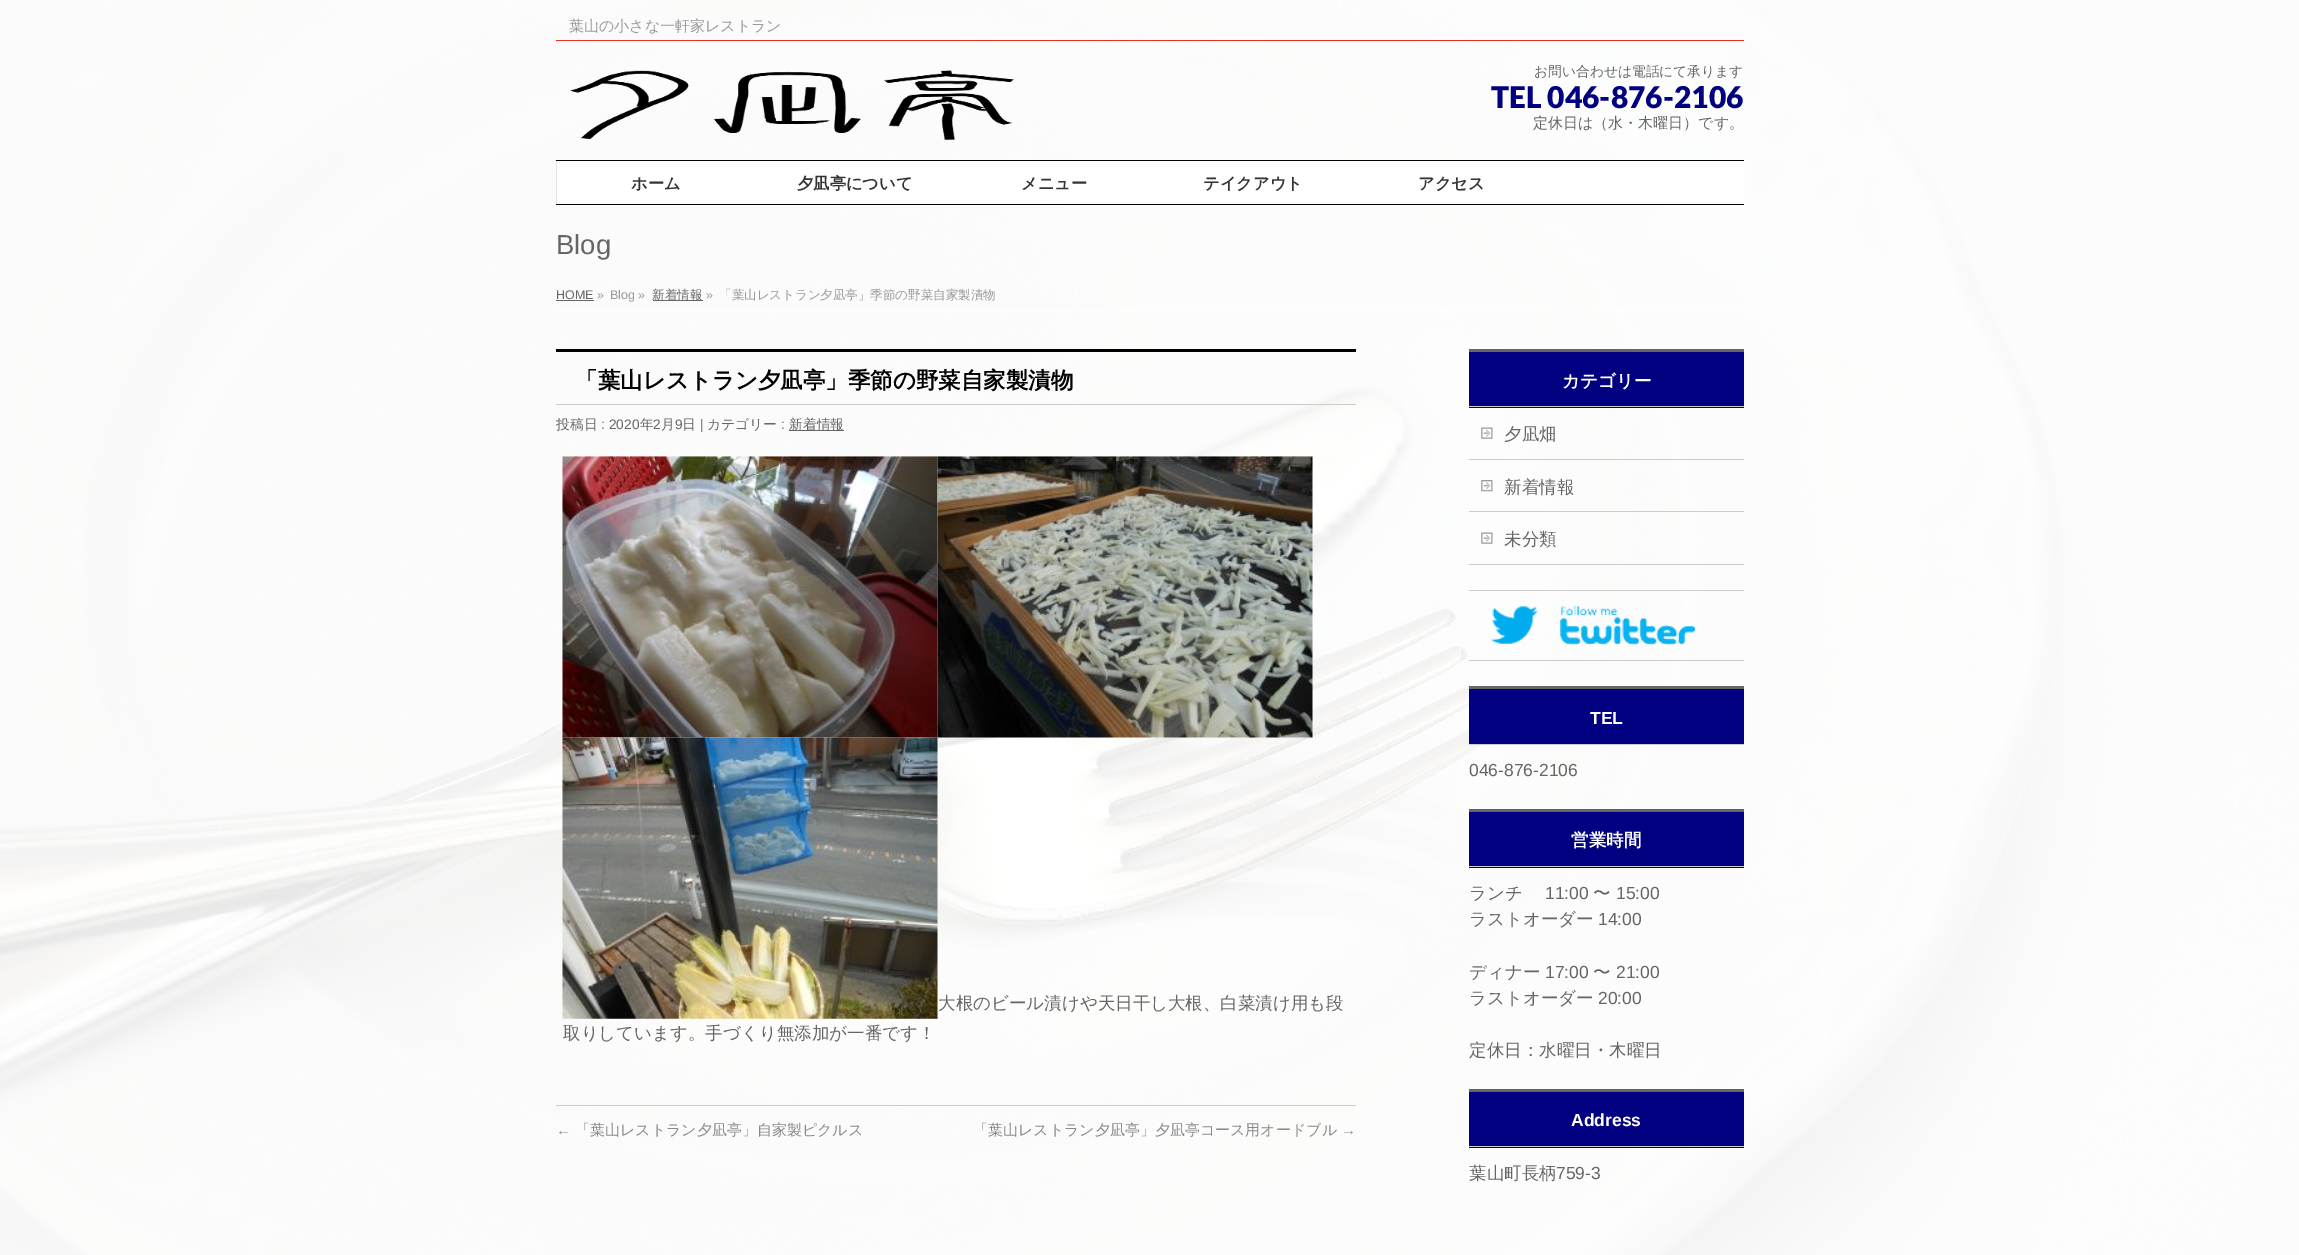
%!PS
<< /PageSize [2299 1255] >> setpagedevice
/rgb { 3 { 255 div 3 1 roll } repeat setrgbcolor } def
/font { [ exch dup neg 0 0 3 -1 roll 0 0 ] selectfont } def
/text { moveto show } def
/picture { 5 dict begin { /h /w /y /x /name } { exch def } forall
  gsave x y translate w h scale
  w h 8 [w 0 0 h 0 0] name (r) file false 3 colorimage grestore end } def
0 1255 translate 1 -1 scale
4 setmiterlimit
255 255 255 rgb
0 0 2299 1255 rectfill
(img_01.rgb) 0 0 2299 1255 picture
231 49 38 rgb
556 40 1188 1 rectfill
(img_02.rgb) 570 70 444 70 picture
255 255 255 rgb
557 161 1187 43 rectfill
0 0 0 rgb
556 160 1188 1 rectfill
556 204 1188 1 rectfill
229 229 229 rgb
556 161 1 43 rectfill
255 255 255 rgb
556 310 1188 1 rectfill
102 102 102 rgb
556 300 38 1 rectfill
653 300 50 1 rectfill
0 0 0 rgb
556 349 800 3 rectfill
204 204 204 rgb
556 404 800 1 rectfill
102 102 102 rgb
789 430 55 1 rectfill
(img_03.rgb) 562 456 376 282 picture
(img_04.rgb) 937 456 376 282 picture
(img_05.rgb) 562 737 376 282 picture
204 204 204 rgb
556 1105 800 1 rectfill
0 0 128 rgb
1469 352 275 56 rectfill
102 102 102 rgb
1469 349 275 3 rectfill
204 204 204 rgb
1469 406 275 1 rectfill
1469 459 275 1 rectfill
(img_06.rgb) 1481 427 12 12 picture
1469 511 275 1 rectfill
(img_07.rgb) 1481 480 12 12 picture
1469 564 275 1 rectfill
(img_08.rgb) 1481 532 12 12 picture
1469 590 275 1 rectfill
1469 660 275 1 rectfill
(img_09.rgb) 1491 606 205 40 picture
0 0 128 rgb
1469 689 275 55 rectfill
102 102 102 rgb
1469 686 275 3 rectfill
204 204 204 rgb
1469 744 275 1 rectfill
0 0 128 rgb
1469 812 275 56 rectfill
102 102 102 rgb
1469 809 275 3 rectfill
204 204 204 rgb
1469 866 275 1 rectfill
0 0 128 rgb
1469 1092 275 56 rectfill
102 102 102 rgb
1469 1089 275 3 rectfill
204 204 204 rgb
1469 1146 275 1 rectfill
/WenQuanYiZenHei-Medium 15 font
153 153 153 rgb
(葉山の小さな一軒家レストラン) 569 31 text
/WenQuanYiZenHei-Medium 13.75 font
102 102 102 rgb
(お問い合わせは電話にて承ります) 1534 76 text
/Lato-Black 30 font
0 0 128 rgb
(TEL 046-876-2106) 1491 108 text
/WenQuanYiZenHei-Medium 15 font
102 102 102 rgb
(定休日は（水・木曜日）です。) 1533 128 text
/WenQuanYiZenHei-Bold 16.25 font
51 51 51 rgb
(ホーム) 631 189 text
(夕凪亭について) 797 189 text
(メニュー) 1021 189 text
(テイクアウト) 1203 189 text
(アクセス) 1418 189 text
/LiberationSans-Regular 27.5 font
102 102 102 rgb
(Blog) 556 254 text
/LiberationSans-Regular 12.5 font
(HOME) 556 299 text
153 153 153 rgb
(») 597 299 text
(Blog ») 610 299 text
/WenQuanYiZenHei-Medium 12.5 font
102 102 102 rgb
(新着情報) 652 299 text
/LiberationSans-Regular 12.5 font
153 153 153 rgb
(») 706 299 text
/WenQuanYiZenHei-Medium 12.5 font
(「葉山レストラン夕凪亭」季節の野菜自家製漬物) 719 299 text
/WenQuanYiZenHei-Bold 22.5 font
0 0 0 rgb
(「葉山レストラン夕凪亭」季節の野菜自家製漬物) 575 388 text
/WenQuanYiZenHei-Medium 13.75 font
102 102 102 rgb
(投稿日) 556 429 text
/LiberationSans-Regular 13.75 font
(: 2020) 601 429 text
/WenQuanYiZenHei-Medium 13.75 font
(年) 640 429 text
/LiberationSans-Regular 13.75 font
(2) 653 429 text
/WenQuanYiZenHei-Medium 13.75 font
(月) 661 429 text
/LiberationSans-Regular 13.75 font
(9) 675 429 text
/WenQuanYiZenHei-Medium 13.75 font
(日) 682 429 text
/LiberationSans-Regular 13.75 font
(|) 700 429 text
/WenQuanYiZenHei-Medium 13.75 font
(カテゴリー) 707 429 text
/LiberationSans-Regular 13.75 font
(:) 781 429 text
/WenQuanYiZenHei-Medium 13.75 font
(新着情報) 789 429 text
/WenQuanYiZenHei-Medium 17.5 font
(大根のビール漬けや天日干し大根、白菜漬け用も段) 938 1009 text
(取りしています。手づくり無添加が一番です！) 563 1039 text
/LiberationSans-Regular 15 font
136 136 136 rgb
(←) 556 1135 text
/WenQuanYiZenHei-Medium 15 font
(「葉山レストラン夕凪亭」自家製ピクルス) 575 1135 text
(「葉山レストラン夕凪亭」夕凪亭コース用オードブル) 973 1135 text
/LiberationSans-Regular 15 font
(→) 1341 1135 text
/WenQuanYiZenHei-Bold 17.5 font
255 255 255 rgb
(カテゴリー) 1562 387 text
/WenQuanYiZenHei-Medium 17.5 font
102 102 102 rgb
(夕凪畑) 1504 440 text
(新着情報) 1504 493 text
(未分類) 1504 545 text
/LiberationSans-Bold 17.5 font
255 255 255 rgb
(TEL) 1590 724 text
/LiberationSans-Regular 17.5 font
102 102 102 rgb
(046-876-2106) 1469 776 text
/WenQuanYiZenHei-Bold 17.5 font
255 255 255 rgb
(営業時間) 1571 846 text
/WenQuanYiZenHei-Medium 17.5 font
102 102 102 rgb
(ランチ) 1469 899 text
/LiberationSans-Regular 17.5 font
(11:00) 1545 899 text
/WenQuanYiZenHei-Medium 17.5 font
(〜) 1593 899 text
/LiberationSans-Regular 17.5 font
(15:00) 1616 899 text
/WenQuanYiZenHei-Medium 17.5 font
(ラストオーダー) 1469 925 text
/LiberationSans-Regular 17.5 font
(14:00) 1598 925 text
/WenQuanYiZenHei-Medium 17.5 font
(ディナー) 1469 978 text
/LiberationSans-Regular 17.5 font
(17:00) 1545 978 text
/WenQuanYiZenHei-Medium 17.5 font
(〜) 1593 978 text
/LiberationSans-Regular 17.5 font
(21:00) 1616 978 text
/WenQuanYiZenHei-Medium 17.5 font
(ラストオーダー) 1469 1004 text
/LiberationSans-Regular 17.5 font
(20:00) 1598 1004 text
/WenQuanYiZenHei-Medium 17.5 font
(定休日：水曜日・木曜日) 1469 1056 text
/LiberationSans-Bold 17.5 font
255 255 255 rgb
(Address) 1571 1126 text
/WenQuanYiZenHei-Medium 17.5 font
102 102 102 rgb
(葉山町長柄) 1469 1179 text
/LiberationSans-Regular 17.5 font
(759-3) 1556 1179 text
showpage
